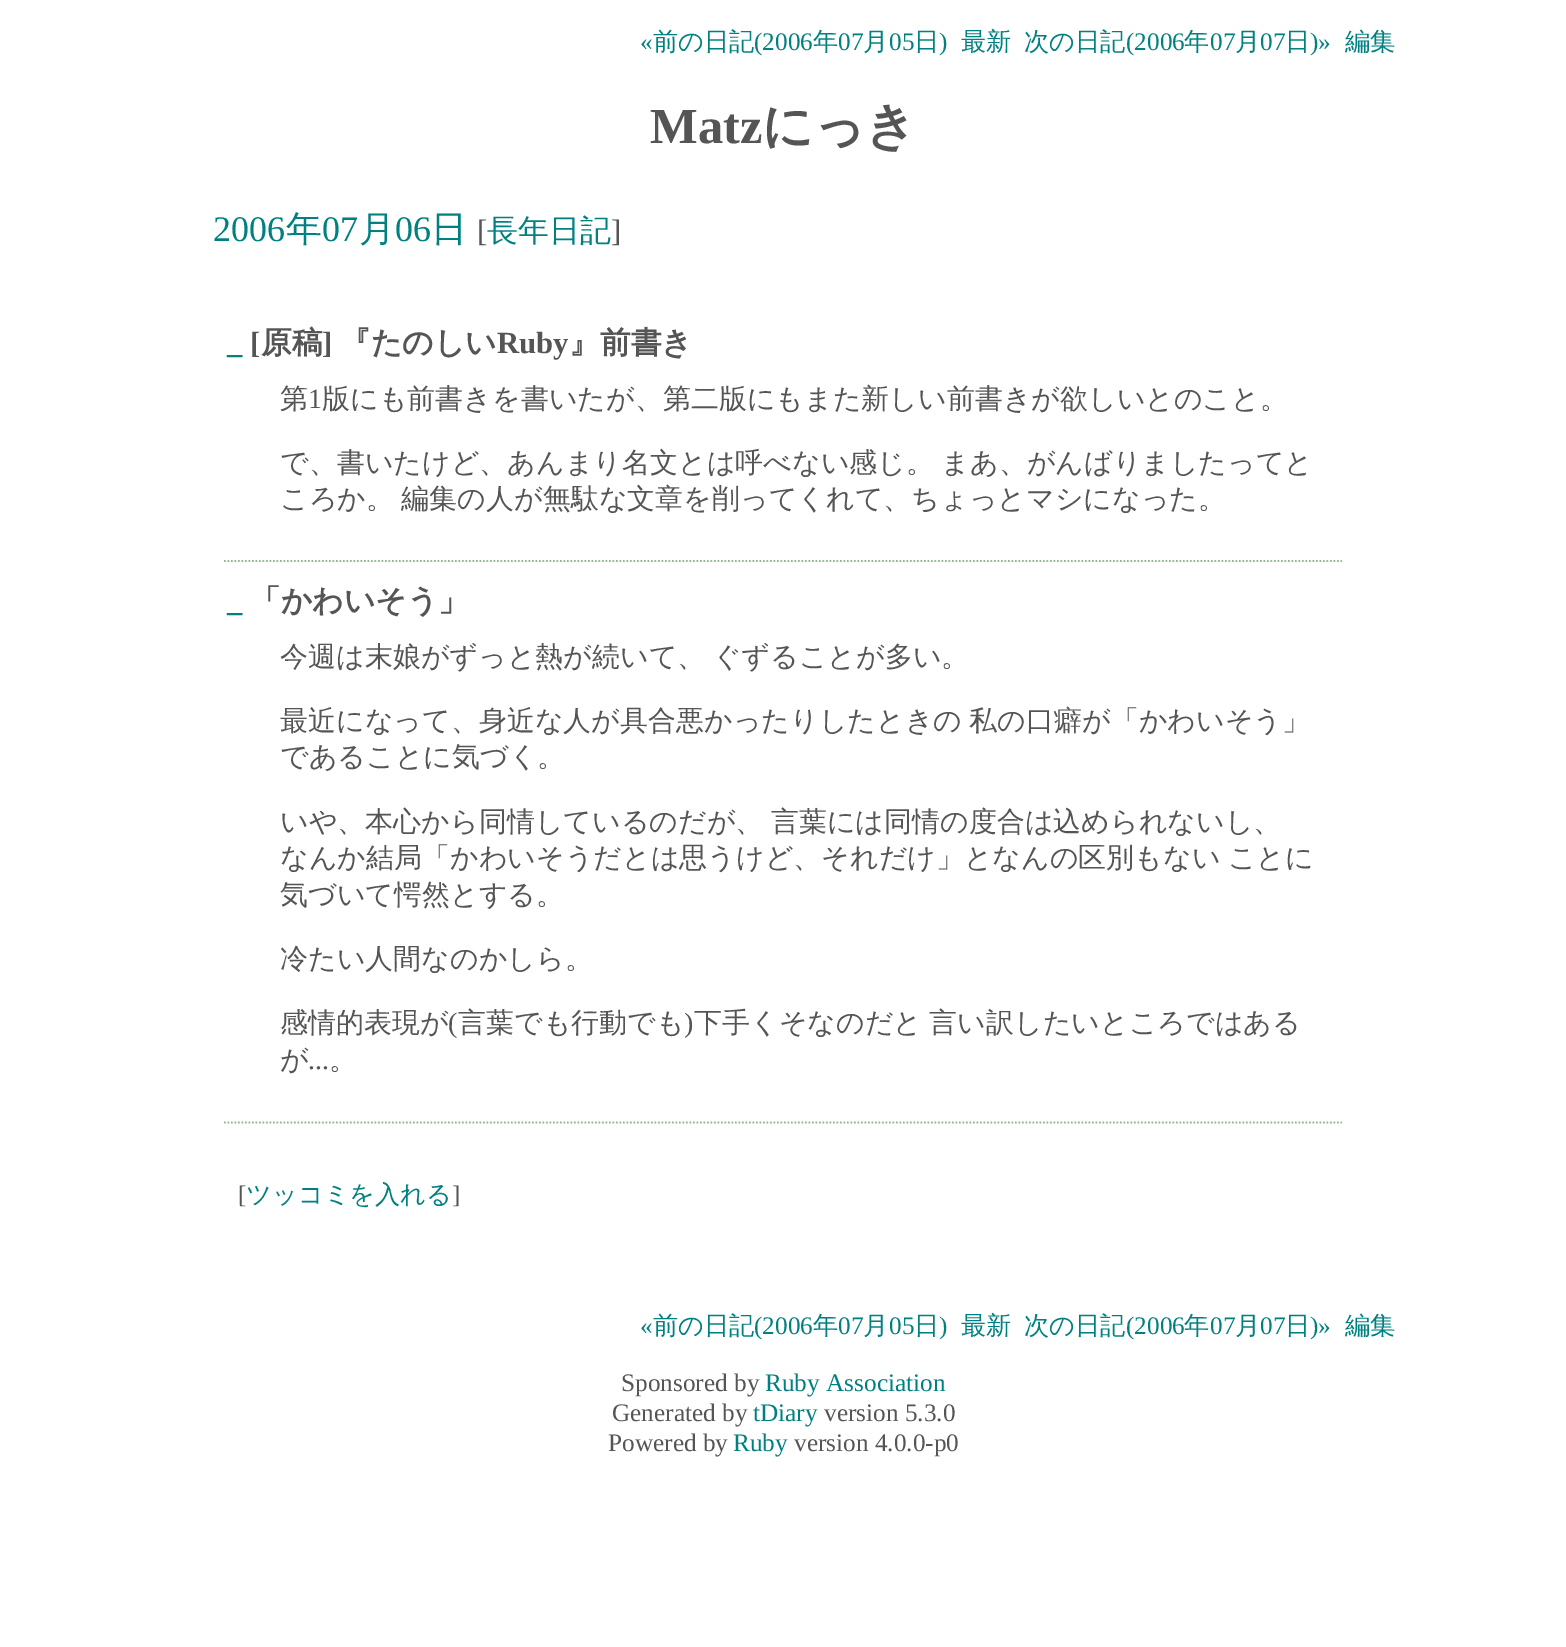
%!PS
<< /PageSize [1566 1647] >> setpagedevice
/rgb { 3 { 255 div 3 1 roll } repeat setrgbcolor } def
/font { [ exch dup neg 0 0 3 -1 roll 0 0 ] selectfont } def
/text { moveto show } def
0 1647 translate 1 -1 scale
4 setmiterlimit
255 255 255 rgb
0 0 1566 1647 rectfill
143 188 143 rgb
1.8 setlinewidth
[1.75 1.75] 0 setdash
224 561 moveto 1118 0 rlineto stroke
224 1122.5 moveto 1118 0 rlineto stroke
/LiberationSerif-Regular 25.25 font
0 128 128 rgb
(«) 640 50 text
/WenQuanYiZenHei-Medium 25.25 font
(前の日記) 653 50 text
/LiberationSerif-Regular 25.25 font
(\(2006) 754 50 text
/WenQuanYiZenHei-Medium 25.25 font
(年) 813 50 text
/LiberationSerif-Regular 25.25 font
(07) 838 50 text
/WenQuanYiZenHei-Medium 25.25 font
(月) 863 50 text
/LiberationSerif-Regular 25.25 font
(05) 889 50 text
/WenQuanYiZenHei-Medium 25.25 font
(日) 914 50 text
/LiberationSerif-Regular 25.25 font
(\)) 939 50 text
/WenQuanYiZenHei-Medium 25.25 font
(最新) 961 50 text
(次の日記) 1024 50 text
/LiberationSerif-Regular 25.25 font
(\(2006) 1126 50 text
/WenQuanYiZenHei-Medium 25.25 font
(年) 1184 50 text
/LiberationSerif-Regular 25.25 font
(07) 1210 50 text
/WenQuanYiZenHei-Medium 25.25 font
(月) 1235 50 text
/LiberationSerif-Regular 25.25 font
(07) 1260 50 text
/WenQuanYiZenHei-Medium 25.25 font
(日) 1285 50 text
/LiberationSerif-Regular 25.25 font
(\)») 1310 50 text
/WenQuanYiZenHei-Medium 25.25 font
(編集) 1345 50 text
/LiberationSerif-Bold 50.5 font
85 85 85 rgb
(Matz) 650 143 text
/WenQuanYiZenHei-Bold 50.5 font
(にっき) 762 143 text
/LiberationSerif-Regular 36 font
0 128 128 rgb
(2006) 213 241 text
/WenQuanYiZenHei-Medium 36 font
(年) 286 241 text
/LiberationSerif-Regular 36 font
(07) 322 241 text
/WenQuanYiZenHei-Medium 36 font
(月) 359 241 text
/LiberationSerif-Regular 36 font
(06) 395 241 text
/WenQuanYiZenHei-Medium 36 font
(日) 431 241 text
/LiberationSerif-Regular 31 font
85 85 85 rgb
([) 477 241 text
/WenQuanYiZenHei-Medium 31 font
0 128 128 rgb
(長年日記) 487 241 text
/LiberationSerif-Regular 31 font
85 85 85 rgb
(]) 611 241 text
/LiberationSerif-Bold 30.75 font
0 128 128 rgb
(_) 227 353 text
85 85 85 rgb
([) 250 353 text
/WenQuanYiZenHei-Bold 30.75 font
(原稿) 261 353 text
/LiberationSerif-Bold 30.75 font
(]) 322 353 text
/WenQuanYiZenHei-Bold 30.75 font
(『たのしい) 340 353 text
/LiberationSerif-Bold 30.75 font
(Ruby) 497 353 text
/WenQuanYiZenHei-Bold 30.75 font
(』前書き) 569 353 text
/WenQuanYiZenHei-Medium 28 font
(第) 280 408 text
/LiberationSerif-Regular 28 font
(1) 308 408 text
/WenQuanYiZenHei-Medium 28 font
(版にも前書きを書いたが、第二版にもまた新しい前書きが欲しいとのこと。) 322 408 text
280 472 moveto -1 0 32 (で、書いたけど、あんまり名文とは呼べない感じ。 まあ、がんばりましたってと) widthshow
280 508 moveto -1 0 32 (ころか。 編集の人が無駄な文章を削ってくれて、ちょっとマシになった。) widthshow
/LiberationSerif-Bold 30.75 font
0 128 128 rgb
(_) 227 611 text
/WenQuanYiZenHei-Bold 30.75 font
85 85 85 rgb
(「かわいそう」) 250 611 text
/WenQuanYiZenHei-Medium 28 font
280 666 moveto -1 0 32 (今週は末娘がずっと熱が続いて、 ぐずることが多い。) widthshow
280 730 moveto -1 0 32 (最近になって、身近な人が具合悪かったりしたときの 私の口癖が「かわいそう」) widthshow
(であることに気づく。) 280 766 text
280 831 moveto -1 0 32 (いや、本心から同情しているのだが、 言葉には同情の度合は込められないし、) widthshow
280 867 moveto -1 0 32 (なんか結局「かわいそうだとは思うけど、それだけ」となんの区別もない ことに) widthshow
(気づいて愕然とする。) 280 904 text
(冷たい人間なのかしら。) 280 968 text
(感情的表現が) 280 1032 text
/LiberationSerif-Regular 28 font
(\() 448 1032 text
/WenQuanYiZenHei-Medium 28 font
(言葉でも行動でも) 458 1032 text
/LiberationSerif-Regular 28 font
(\)) 684 1032 text
/WenQuanYiZenHei-Medium 28 font
694 1032 moveto -1 0 32 (下手くそなのだと 言い訳したいところではある) widthshow
(が) 280 1069 text
/LiberationSerif-Regular 28 font
(...) 308 1069 text
/WenQuanYiZenHei-Medium 28 font
(。) 329 1069 text
/LiberationSerif-Regular 25.25 font
([) 238 1203 text
/WenQuanYiZenHei-Medium 25.25 font
0 128 128 rgb
(ツッコミを入れる) 246 1203 text
/LiberationSerif-Regular 25.25 font
85 85 85 rgb
(]) 452 1203 text
0 128 128 rgb
(«) 640 1334 text
/WenQuanYiZenHei-Medium 25.25 font
(前の日記) 653 1334 text
/LiberationSerif-Regular 25.25 font
(\(2006) 754 1334 text
/WenQuanYiZenHei-Medium 25.25 font
(年) 813 1334 text
/LiberationSerif-Regular 25.25 font
(07) 838 1334 text
/WenQuanYiZenHei-Medium 25.25 font
(月) 863 1334 text
/LiberationSerif-Regular 25.25 font
(05) 889 1334 text
/WenQuanYiZenHei-Medium 25.25 font
(日) 914 1334 text
/LiberationSerif-Regular 25.25 font
(\)) 939 1334 text
/WenQuanYiZenHei-Medium 25.25 font
(最新) 961 1334 text
(次の日記) 1024 1334 text
/LiberationSerif-Regular 25.25 font
(\(2006) 1126 1334 text
/WenQuanYiZenHei-Medium 25.25 font
(年) 1184 1334 text
/LiberationSerif-Regular 25.25 font
(07) 1210 1334 text
/WenQuanYiZenHei-Medium 25.25 font
(月) 1235 1334 text
/LiberationSerif-Regular 25.25 font
(07) 1260 1334 text
/WenQuanYiZenHei-Medium 25.25 font
(日) 1285 1334 text
/LiberationSerif-Regular 25.25 font
(\)») 1310 1334 text
/WenQuanYiZenHei-Medium 25.25 font
(編集) 1345 1334 text
/LiberationSerif-Regular 25.25 font
85 85 85 rgb
(Sponsored by) 621 1391 text
0 128 128 rgb
(Ruby Association) 765 1391 text
85 85 85 rgb
(Generated by) 612 1421 text
0 128 128 rgb
(tDiary) 753 1421 text
85 85 85 rgb
(version 5.3.0) 824 1421 text
(Powered by) 608 1451 text
0 128 128 rgb
(Ruby) 733 1451 text
85 85 85 rgb
(version 4.0.0-p0) 794 1451 text
showpage
